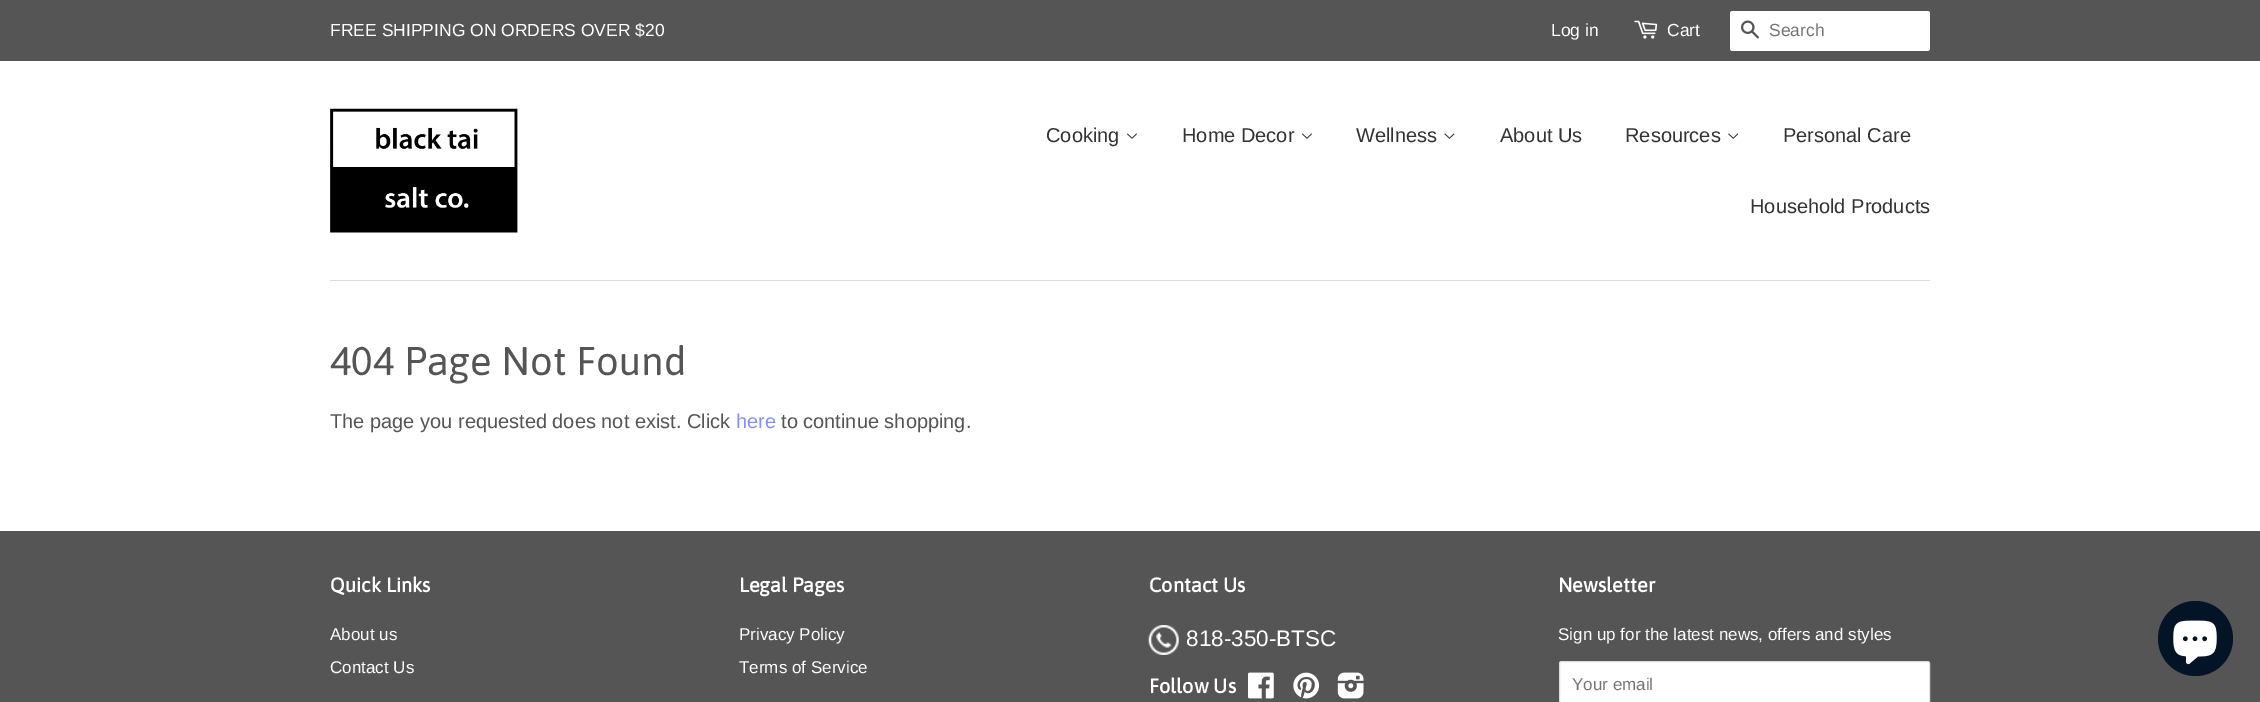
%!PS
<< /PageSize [2260 702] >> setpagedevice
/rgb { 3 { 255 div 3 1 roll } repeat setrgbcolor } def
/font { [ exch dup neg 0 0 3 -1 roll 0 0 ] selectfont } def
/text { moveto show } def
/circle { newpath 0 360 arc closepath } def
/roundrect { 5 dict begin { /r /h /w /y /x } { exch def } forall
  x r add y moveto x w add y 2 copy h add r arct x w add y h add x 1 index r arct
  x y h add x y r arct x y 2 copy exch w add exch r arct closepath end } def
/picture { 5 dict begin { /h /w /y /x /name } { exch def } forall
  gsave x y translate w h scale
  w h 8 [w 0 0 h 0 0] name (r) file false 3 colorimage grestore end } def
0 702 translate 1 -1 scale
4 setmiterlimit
255 255 255 rgb
0 0 2260 702 rectfill
85 85 85 rgb
0 0 2260 61 rectfill
(img_01.rgb) 1634 20 24 19 picture
255 255 255 rgb
1730 11 200 40 2.5 roundrect fill
(img_02.rgb) 1741 20 18 19 picture
221 221 221 rgb
330 280 1600 1 rectfill
(img_03.rgb) 330 108 188 125 picture
(img_04.rgb) 1127 133 10 6 picture
(img_04.rgb) 1302 133 10 6 picture
(img_05.rgb) 1444 133 11 6 picture
(img_06.rgb) 1728 133 11 6 picture
85 85 85 rgb
0 531 2260 171 rectfill
(img_07.rgb) 1148 625 31 30 picture
(img_08.rgb) 1248 672 26 27 picture
(img_09.rgb) 1293 672 27 27 picture
(img_10.rgb) 1337 672 27 27 picture
255 255 255 rgb
1559.5 661.5 370 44 2 roundrect gsave fill grestore
221 221 221 rgb
stroke
4 20 39 rgb
2195.5 638.5 37.5 circle fill
(img_11.rgb) 2173 620 44 45 picture
/LiberationSans-Regular 17.5 font
255 255 255 rgb
(FREE SHIPPING ON ORDERS OVER $20) 330 36 text
(Log in) 1551 36 text
(Cart) 1667 36 text
117 117 117 rgb
(Search) 1769 36 text
/LiberationSans-Regular 20 font
51 51 51 rgb
(Cooking) 1046 142 text
(Home Decor) 1182 142 text
(Wellness) 1356 142 text
(About Us) 1500 142 text
(Resources) 1625 142 text
(Personal Care) 1783 142 text
(Household Products) 1750 213 text
/Asap-Regular 40 font
85 85 85 rgb
(404 Page Not Found) 330 375 text
/LiberationSans-Regular 20 font
(The page you requested does not exist. Click) 330 428 text
131 144 250 rgb
(here) 736 428 text
85 85 85 rgb
(to continue shopping.) 781 428 text
/Asap-Bold 20 font
255 255 255 rgb
(Quick Links) 330 592 text
/LiberationSans-Regular 17 font
(About us) 330 640 text
(Contact Us) 330 673 text
/Asap-Bold 20 font
(Legal Pages) 739 592 text
/LiberationSans-Regular 17 font
(Privacy Policy) 739 640 text
(Terms of Service) 739 673 text
/Asap-Bold 20 font
(Contact Us) 1149 592 text
/LiberationSans-Regular 22.5 font
(818-350-BTSC) 1186 646 text
/Asap-Bold 20 font
(Follow Us) 1149 693 text
(Newsletter) 1558 592 text
/LiberationSans-Regular 17 font
(Sign up for the latest news, offers and styles) 1558 640 text
117 117 117 rgb
(Your email) 1572 690 text
showpage
